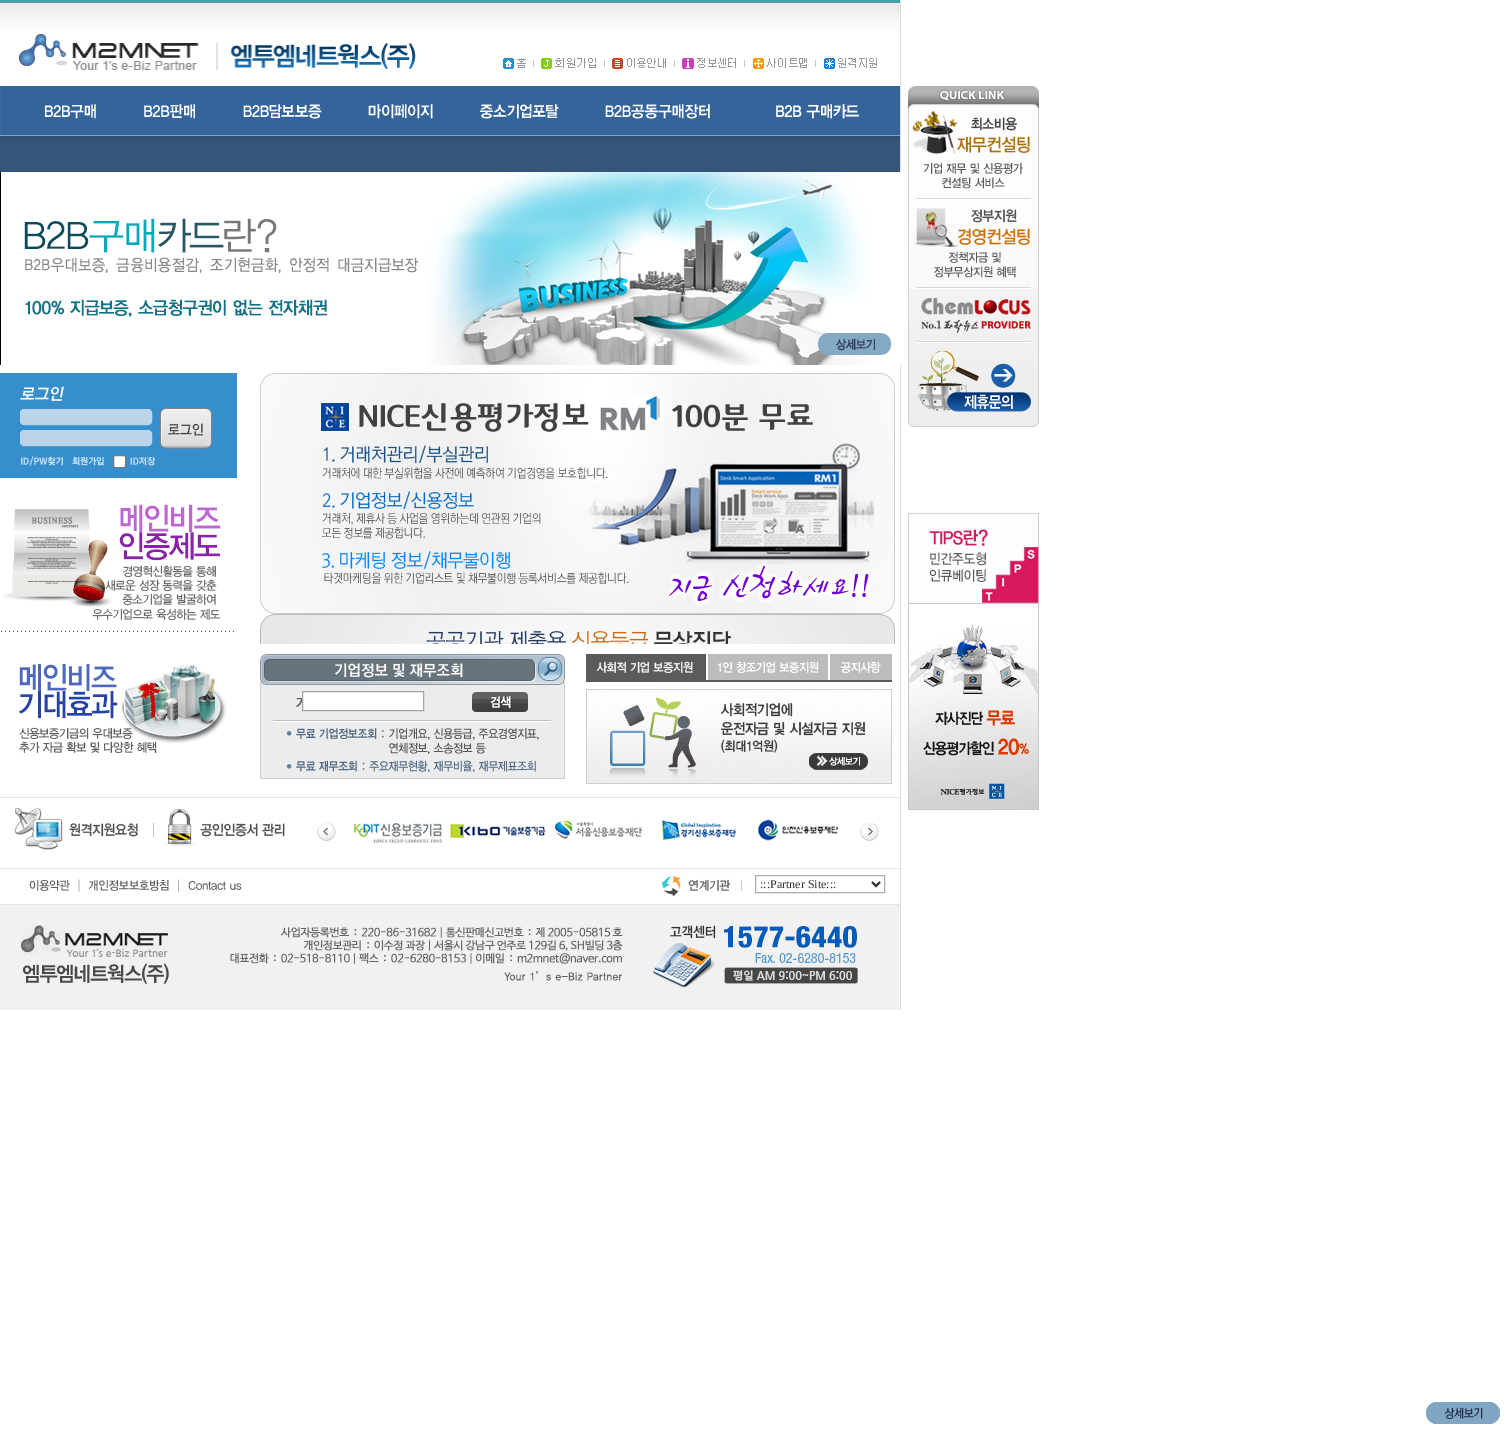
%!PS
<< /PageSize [1510 1434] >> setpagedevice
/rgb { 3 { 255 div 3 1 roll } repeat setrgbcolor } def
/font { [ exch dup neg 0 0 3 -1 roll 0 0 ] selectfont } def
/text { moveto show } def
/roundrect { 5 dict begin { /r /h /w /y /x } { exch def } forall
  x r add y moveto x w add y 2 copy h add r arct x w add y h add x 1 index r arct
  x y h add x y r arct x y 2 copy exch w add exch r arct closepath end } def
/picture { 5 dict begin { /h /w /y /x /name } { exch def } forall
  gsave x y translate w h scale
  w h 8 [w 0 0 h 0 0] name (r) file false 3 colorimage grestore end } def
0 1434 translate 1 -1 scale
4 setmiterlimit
255 255 255 rgb
0 0 1510 1434 rectfill
(img_01.rgb) 0 0 900 172 picture
221 221 221 rgb
900 0 1 172 rectfill
(img_02.rgb) 19 34 397 36 picture
(img_03.rgb) 503 58 31 11 picture
(img_04.rgb) 541 58 64 11 picture
(img_05.rgb) 612 58 63 11 picture
(img_06.rgb) 682 58 63 11 picture
(img_07.rgb) 753 58 63 11 picture
(img_08.rgb) 824 58 53 11 picture
(img_09.rgb) 0 86 96 49 picture
(img_10.rgb) 144 104 51 15 picture
(img_11.rgb) 243 104 79 15 picture
(img_12.rgb) 368 104 65 15 picture
(img_13.rgb) 480 104 79 15 picture
(img_14.rgb) 605 104 105 15 picture
(img_15.rgb) 776 104 83 15 picture
(img_16.rgb) 0 172 891 193 picture
(img_17.rgb) 1426 1402 74 22 picture
(img_18.rgb) 1426 1402 74 22 picture
(img_19.rgb) 1426 1402 74 22 picture
900 365 1 645 rectfill
229 229 229 rgb
0 797 900 1 rectfill
54 142 204 rgb
0 373 237 105 rectfill
(img_20.rgb) 20 386 44 15 picture
188 212 234 rgb
20.5 409.5 131 15 3.5 roundrect gsave fill grestore
stroke
20.5 430.5 131 15 3.5 roundrect gsave fill grestore
stroke
(img_21.rgb) 160 408 52 41 picture
(img_22.rgb) 21 456 42 10 picture
(img_23.rgb) 72 457 32 9 picture
255 255 255 rgb
113.5 455.5 12 12 1.5 roundrect gsave fill grestore
118 118 118 rgb
stroke
(img_24.rgb) 130 457 25 9 picture
(img_25.rgb) 1 504 233 249 picture
(img_26.rgb) 260 373 635 241 picture
(img_27.rgb) 260 614 635 30 picture
(img_28.rgb) 260 654 305 125 picture
255 255 255 rgb
302.5 691.5 moveto 121 0 rlineto 0 19 rlineto -121 0 rlineto closepath gsave fill grestore
164 164 164 rgb
stroke
(img_29.rgb) 472 692 56 20 picture
(img_30.rgb) 586 654 122 28 picture
(img_31.rgb) 708 654 122 28 picture
(img_32.rgb) 830 654 62 28 picture
(img_33.rgb) 586 689 306 95 picture
(img_34.rgb) 15 808 139 42 picture
(img_35.rgb) 164 809 121 37 picture
(img_36.rgb) 317 822 19 19 picture
(img_37.rgb) 354 823 88 20 picture
(img_38.rgb) 450 823 96 16 picture
(img_39.rgb) 555 820 87 19 picture
(img_40.rgb) 661 820 75 20 picture
(img_41.rgb) 758 819 80 22 picture
(img_42.rgb) 860 822 19 19 picture
(img_43.rgb) 908 86 131 114 picture
(img_44.rgb) 908 200 131 89 picture
(img_45.rgb) 908 289 131 54 picture
(img_46.rgb) 908 343 131 84 picture
(img_47.rgb) 908 513 131 90 picture
(img_48.rgb) 908 603 131 207 picture
229 229 229 rgb
0 868 900 1 rectfill
0 904 900 1 rectfill
(img_49.rgb) 29 879 51 13 picture
(img_50.rgb) 88 879 91 13 picture
(img_51.rgb) 188 881 54 9 picture
(img_52.rgb) 662 876 80 20 picture
171 173 179 rgb
755.5 875.5 129 17 rectstroke
51 51 51 rgb
2 setlinewidth
872 882 moveto 4 4 rlineto 4 -4 rlineto stroke
241 241 241 rgb
0 905 900 105 rectfill
(img_53.rgb) 21 925 148 59 picture
(img_54.rgb) 230 925 628 63 picture
/LiberationSerif-Regular 12 font
51 51 51 rgb
(:::Partner Site:::) 760 888 text
showpage
